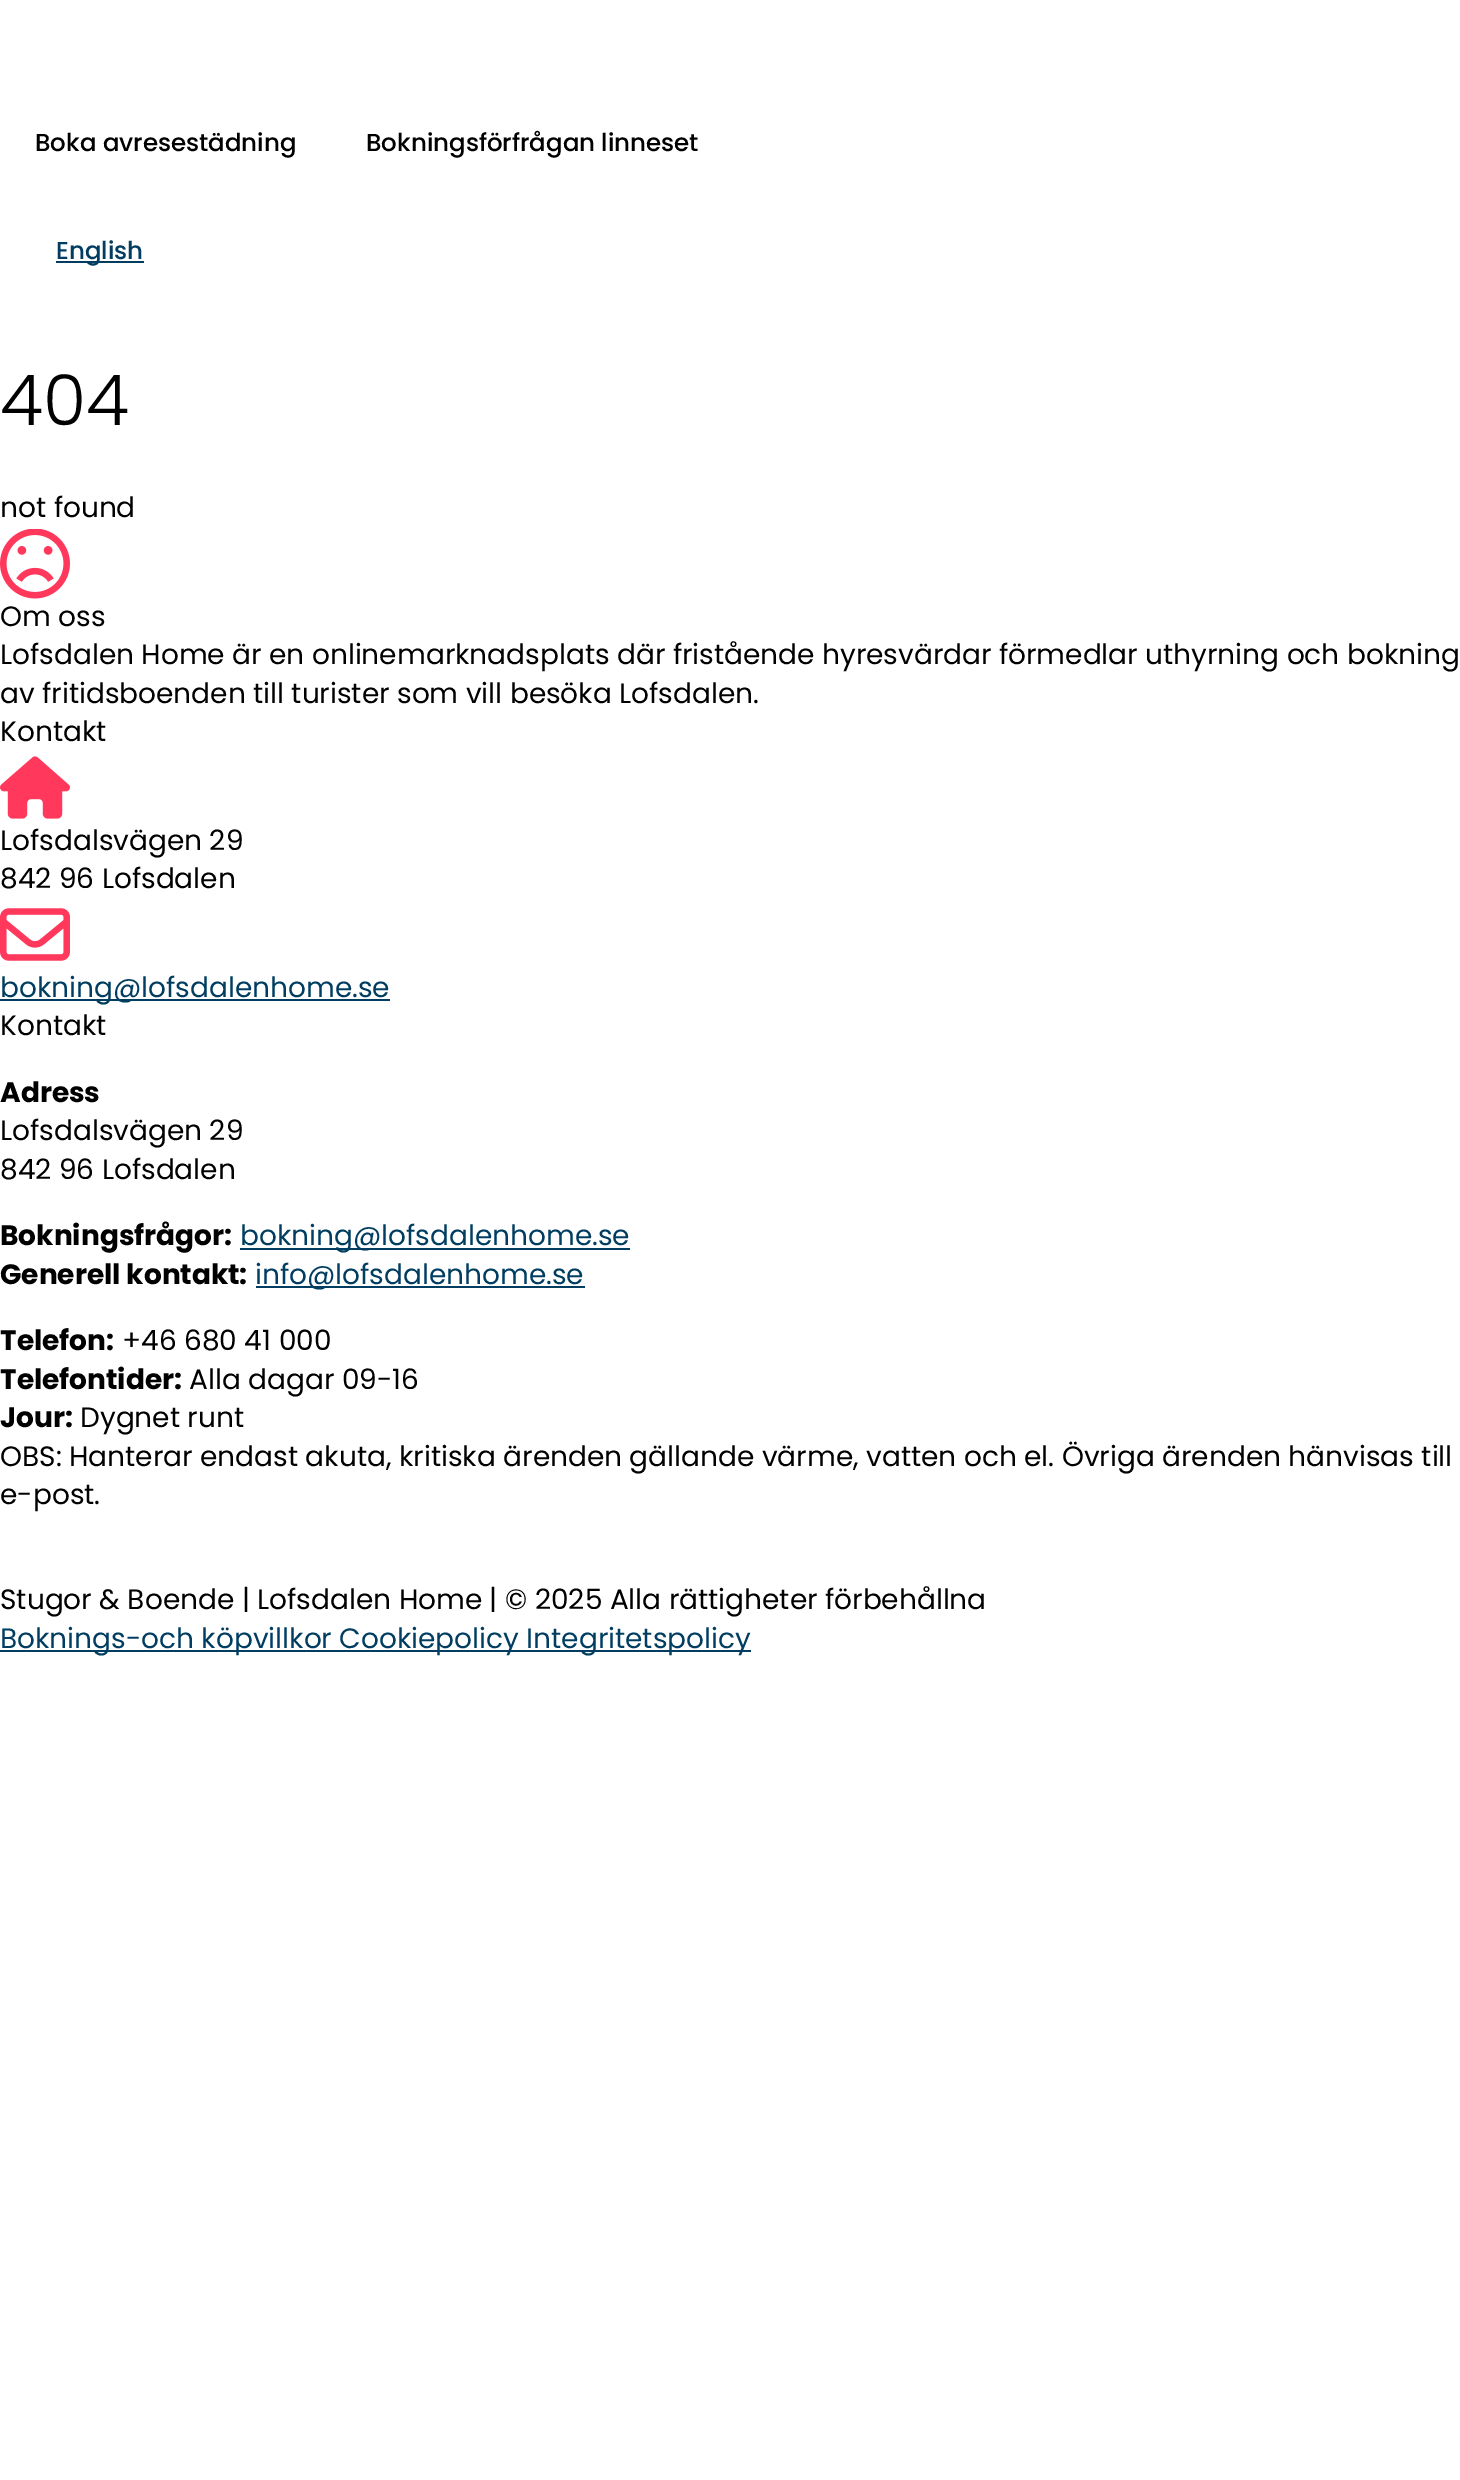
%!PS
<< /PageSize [1460 2480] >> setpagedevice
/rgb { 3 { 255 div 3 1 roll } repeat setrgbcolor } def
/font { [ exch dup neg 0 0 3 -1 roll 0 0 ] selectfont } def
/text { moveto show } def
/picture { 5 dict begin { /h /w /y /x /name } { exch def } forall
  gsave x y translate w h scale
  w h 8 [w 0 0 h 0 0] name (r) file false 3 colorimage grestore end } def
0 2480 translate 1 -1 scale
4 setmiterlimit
255 255 255 rgb
0 0 1460 2480 rectfill
0 61 96 rgb
56 261 88 2 rectfill
(img_01.rgb) 0 529 70 70 picture
(img_02.rgb) 0 756 70 63 picture
(img_03.rgb) 0 908 70 53 picture
0 999 390 2 rectfill
240 1248 390 2 rectfill
256 1286 329 2 rectfill
0 1650 751 2 rectfill
/Poppins-Medium 24.5 font
0 0 0 rgb
(Boka avresestädning) 35 151 text
(Bokningsförfrågan linneset) 366 151 text
0 61 96 rgb
(English) 56 259 text
/Poppins-Light 70 font
0 0 0 rgb
(404) 0 425 text
/Poppins-Regular 28 font
(not found) 0 517 text
(Om oss) 0 626 text
(Lofsdalen Home är en onlinemarknadsplats där fristående hyresvärdar förmedlar uthyrning och bokning) 0 664 text
(av fritidsboenden till turister som vill besöka Lofsdalen.) 0 703 text
(Kontakt) 0 741 text
(Lofsdalsvägen 29) 0 850 text
(842 96 Lofsdalen) 0 888 text
0 61 96 rgb
(bokning@lofsdalenhome.se) 0 997 text
0 0 0 rgb
(Kontakt) 0 1035 text
/Poppins-Bold 28 font
(Adress) 0 1102 text
/Poppins-Regular 28 font
(Lofsdalsvägen 29) 0 1140 text
(842 96 Lofsdalen) 0 1179 text
/Poppins-Bold 28 font
(Bokningsfrågor:) 0 1245 text
/Poppins-Regular 28 font
0 61 96 rgb
(bokning@lofsdalenhome.se) 240 1245 text
/Poppins-Bold 28 font
0 0 0 rgb
(Generell kontakt:) 0 1284 text
/Poppins-Regular 28 font
0 61 96 rgb
(info@lofsdalenhome.se) 255 1284 text
/Poppins-Bold 28 font
0 0 0 rgb
(Telefon:) 0 1350 text
/Poppins-Regular 28 font
(+46 680 41 000) 122 1350 text
/Poppins-Bold 28 font
(Telefontider:) 0 1389 text
/Poppins-Regular 28 font
(Alla dagar 09-16) 189 1389 text
/Poppins-Bold 28 font
(Jour:) 0 1427 text
/Poppins-Regular 28 font
(Dygnet runt) 80 1427 text
(OBS: Hanterar endast akuta, kritiska ärenden gällande värme, vatten och el. Övriga ärenden hänvisas till) 0 1466 text
(e-post.) 0 1504 text
(Stugor & Boende | Lofsdalen Home | © 2025 Alla rättigheter förbehållna) 0 1609 text
0 61 96 rgb
(Boknings-och köpvillkor Cookiepolicy Integritetspolicy) 0 1648 text
showpage
